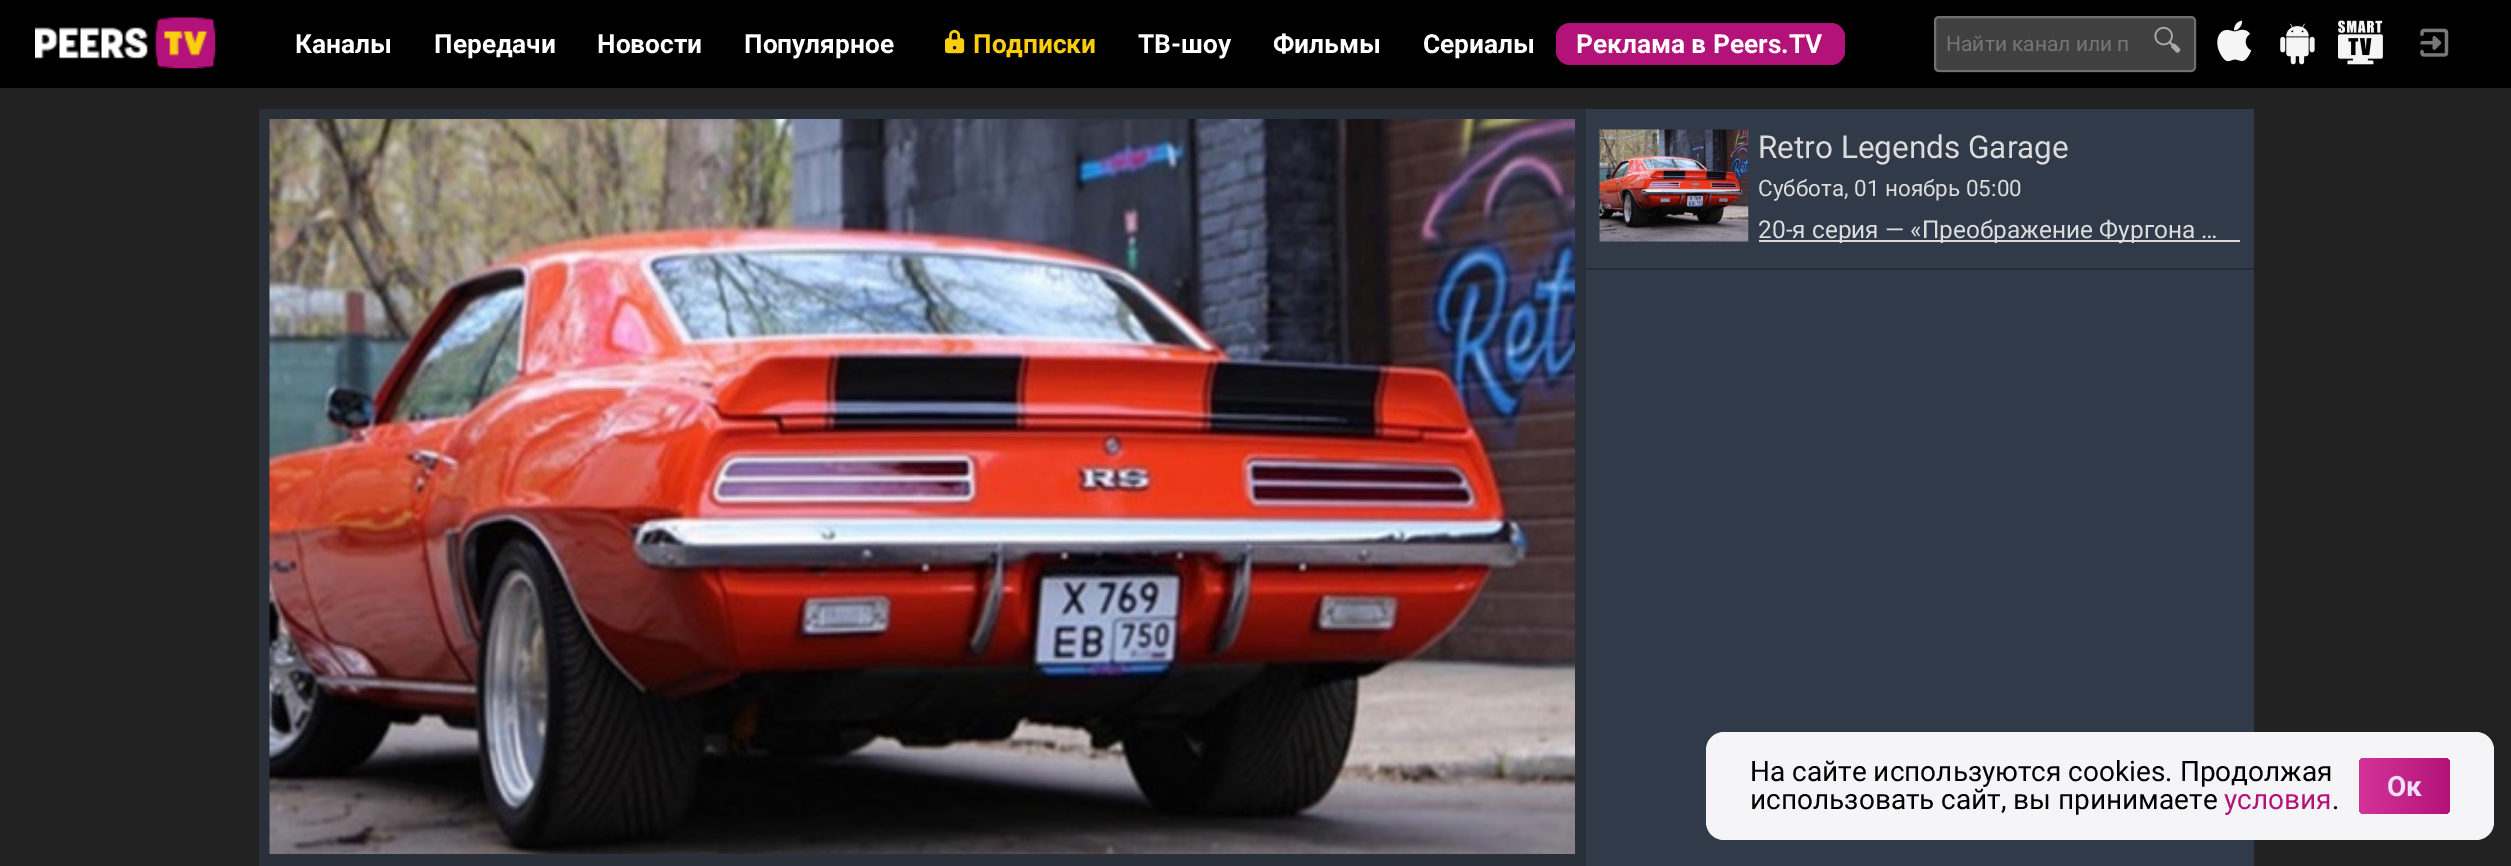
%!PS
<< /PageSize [2511 866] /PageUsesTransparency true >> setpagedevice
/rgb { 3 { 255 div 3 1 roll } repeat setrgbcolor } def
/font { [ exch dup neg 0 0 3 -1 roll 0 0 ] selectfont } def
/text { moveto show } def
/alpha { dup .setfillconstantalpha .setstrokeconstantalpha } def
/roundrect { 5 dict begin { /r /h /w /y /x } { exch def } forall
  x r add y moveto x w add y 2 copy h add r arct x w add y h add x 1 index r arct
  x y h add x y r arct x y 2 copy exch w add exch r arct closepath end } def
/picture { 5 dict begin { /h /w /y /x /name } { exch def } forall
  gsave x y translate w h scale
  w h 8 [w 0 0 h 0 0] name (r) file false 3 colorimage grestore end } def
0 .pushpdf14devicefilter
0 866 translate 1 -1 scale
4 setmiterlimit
34 34 34 rgb
0 0 2511 866 rectfill
0 0 0 rgb
0 0 2511 88 rectfill
(img_01.rgb) 35 17 181 52 picture
(img_02.rgb) 945 29 20 25 picture
179 18 121 rgb
1556 23 289 42 14 roundrect fill
64 64 64 rgb
1934 16 262 56 5 roundrect fill
0.25 alpha
255 255 255 rgb
2 setlinewidth
1935 17 260 54 4 roundrect stroke
1 alpha
(img_03.rgb) 2154 26 27 27 picture
(img_04.rgb) 2217 20 35 42 picture
(img_05.rgb) 2280 23 35 42 picture
(img_06.rgb) 2338 20 45 45 picture
(img_07.rgb) 2420 28 29 29 picture
42 48 57 rgb
259 109 1327 757 rectfill
(img_08.rgb) 269 119 1306 735 picture
48 58 72 rgb
1586 109 668 757 rectfill
36 44 54 rgb
1586 268 668 2 rectfill
(img_09.rgb) 1599 129 150 113 picture
220 220 220 rgb
1759 240 481 2 rectfill
245 245 247 rgb
1706 732 788 108 18 roundrect fill
179 18 121 rgb
2359 758 91 56 5 roundrect fill
gsave
2359 758 91 56 5 roundrect clip newpath
gsave 2364 758 moveto 84 0 rlineto 0 56 rlineto -84 0 rlineto -3 0 -5 -2 -5 -5 rcurveto 0 -46 rlineto 0 -3 2 -5 5 -5 rcurveto closepath clip newpath
<< /ShadingType 2 /ColorSpace /DeviceRGB /Coords [2273 786 2448 786] /Extend [true true] /Function << /FunctionType 3 /Domain [0 1] /Functions [<< /FunctionType 2 /Domain [0 1] /C0 [0.702 0.071 0.475] /C1 [0.827 0.196 0.6] /N 1 >> << /FunctionType 2 /Domain [0 1] /C0 [0.827 0.196 0.6] /C1 [0.702 0.071 0.475] /N 1 >>] /Bounds [0.51] /Encode [0 1 0 1] >> >> shfill grestore
gsave 2448 758 moveto 2 0 rlineto 0 56 rlineto -2 0 rlineto closepath clip newpath
<< /ShadingType 2 /ColorSpace /DeviceRGB /Coords [2448 786 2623 786] /Extend [true true] /Function << /FunctionType 3 /Domain [0 1] /Functions [<< /FunctionType 2 /Domain [0 1] /C0 [0.702 0.071 0.475] /C1 [0.827 0.196 0.6] /N 1 >> << /FunctionType 2 /Domain [0 1] /C0 [0.827 0.196 0.6] /C1 [0.702 0.071 0.475] /N 1 >>] /Bounds [0.51] /Encode [0 1 0 1] >> >> shfill grestore
grestore
/Roboto-Bold 26.25 font
255 255 255 rgb
(Каналы) 295 53 text
(Передачи) 434 53 text
(Новости) 597 53 text
(Популярное) 744 53 text
250 205 15 rgb
(Подписки) 973 53 text
255 255 255 rgb
(ТВ-шоу) 1138 53 text
(Фильмы) 1273 53 text
(Сериалы) 1423 53 text
(Реклама в Peers.TV) 1576 53 text
/Roboto-Regular 21 font
117 117 117 rgb
(Найти канал или п) 1946 51 text
/Roboto-Regular 31.5 font
220 220 220 rgb
(Retro Legends Garage) 1758 158 text
/Roboto-Regular 22.5 font
(Суббота, 01 ноябрь 05:00) 1758 196 text
/Roboto-Regular 24.5 font
(20-я серия — «Преображение Фургона …) 1758 238 text
/Roboto-Regular 28 font
0 0 0 rgb
(На сайте используются cookies. Продолжая) 1750 781 text
(использовать сайт, вы принимаете) 1750 809 text
179 18 121 rgb
(условия) 2224 809 text
0 0 0 rgb
(.) 2332 809 text
/Roboto-Bold 28 font
237 224 247 rgb
(Ок) 2387 796 text
.poppdf14devicefilter showpage
